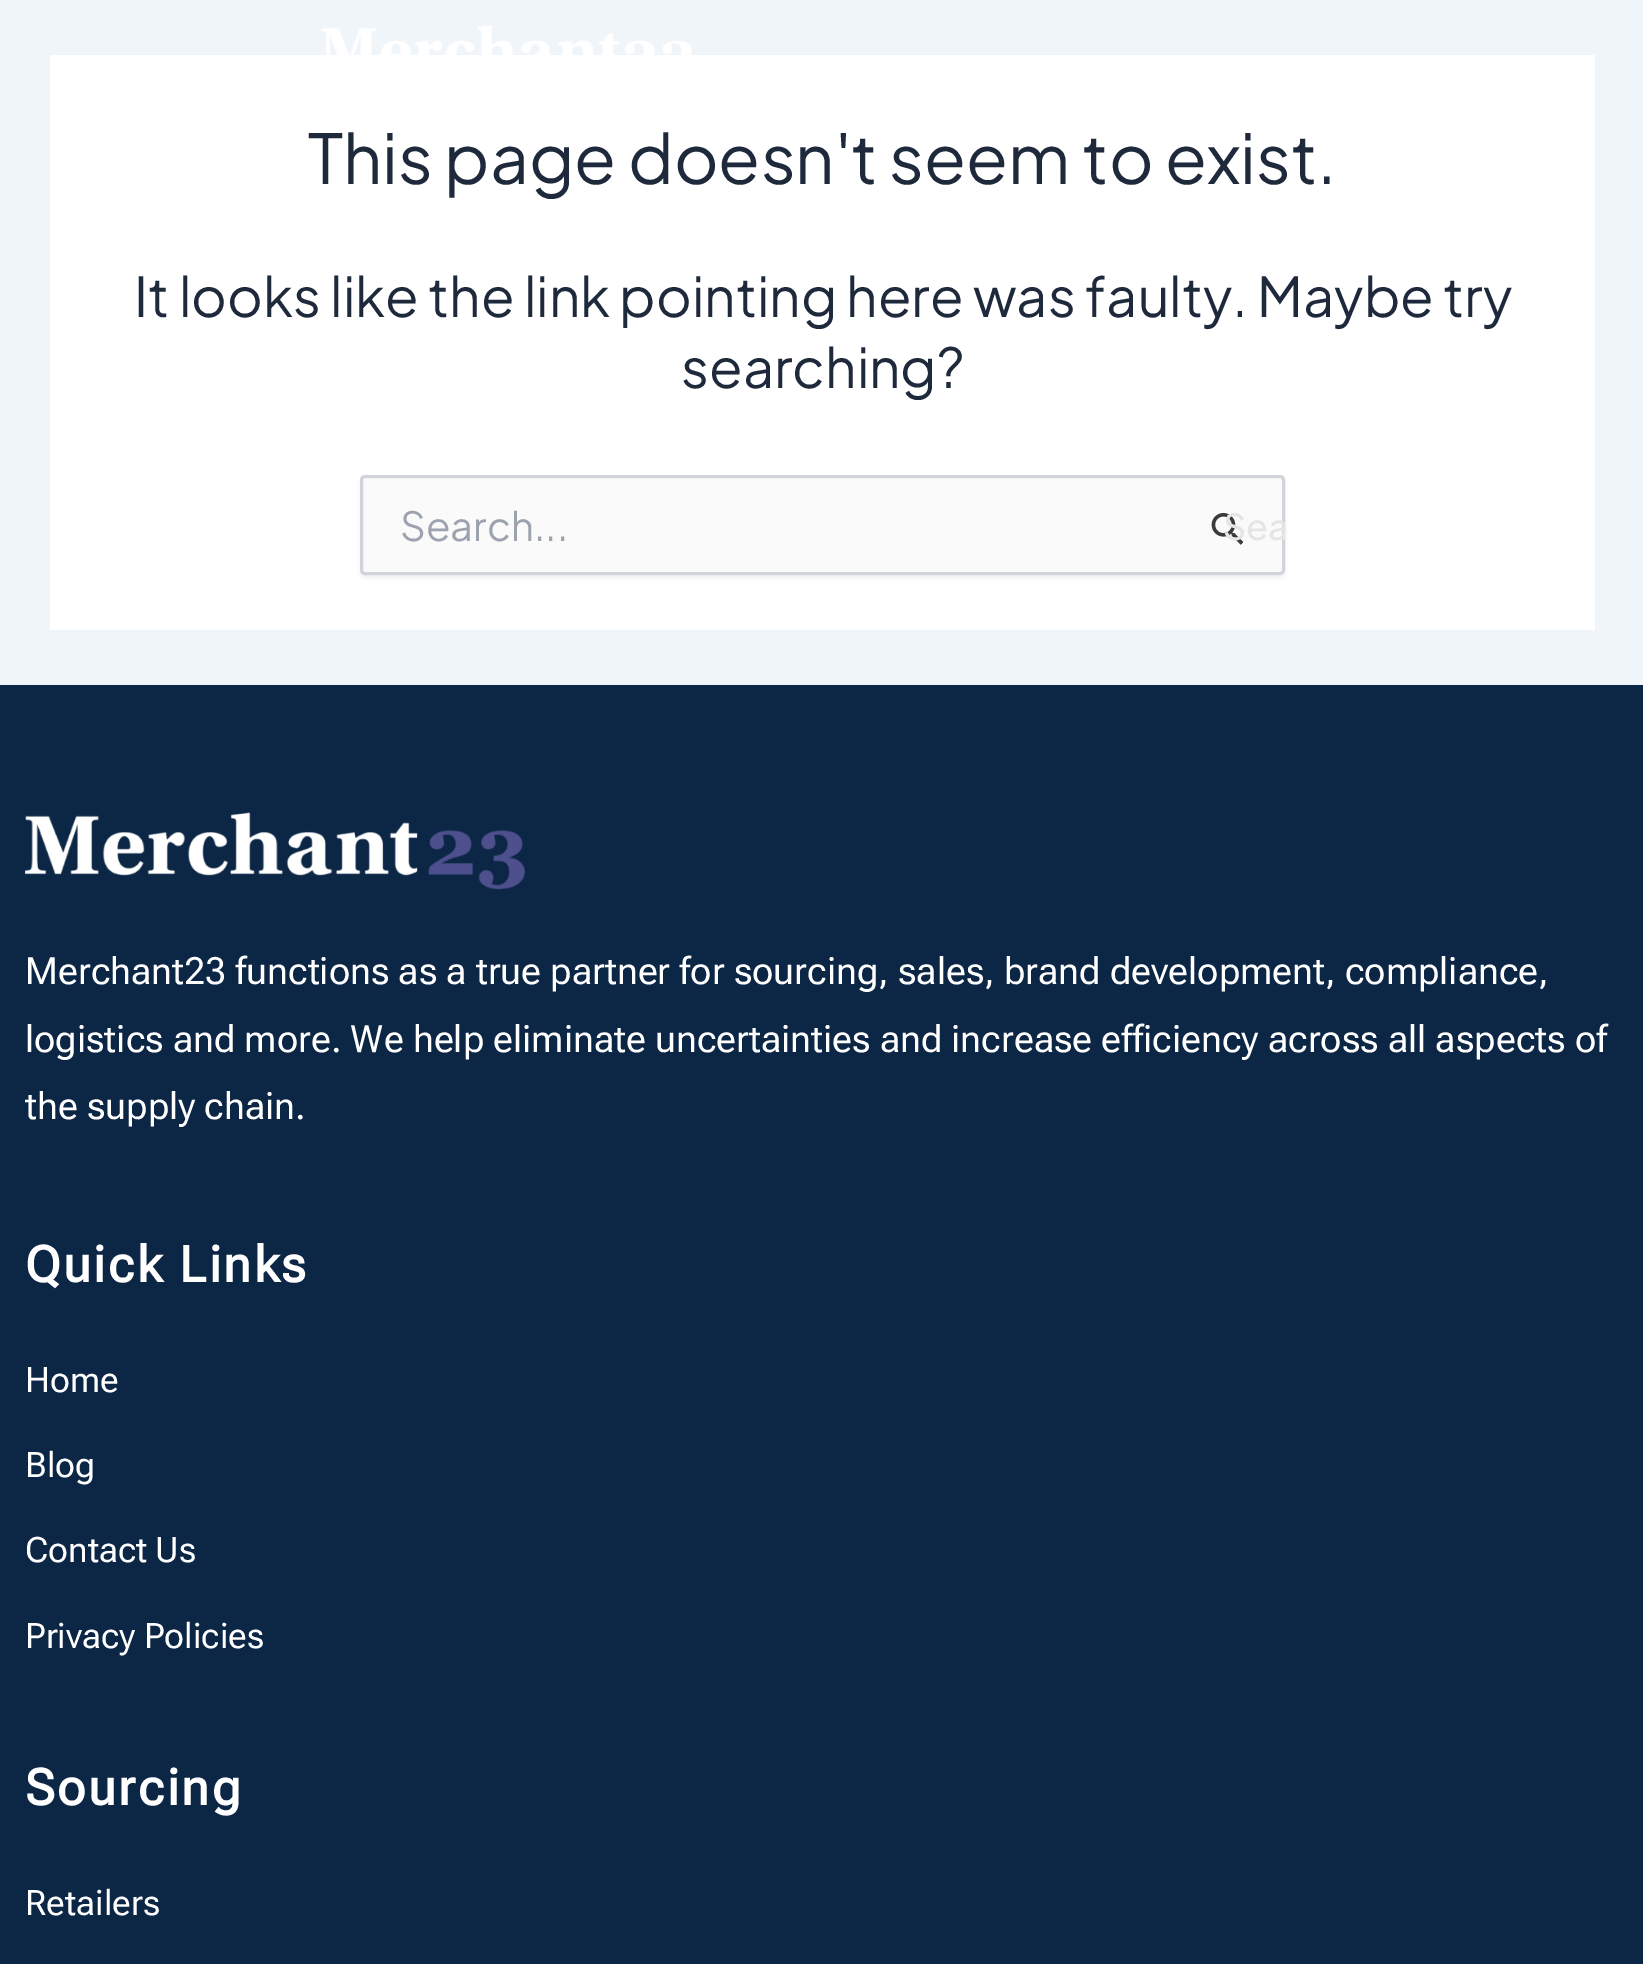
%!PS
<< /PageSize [1643 1964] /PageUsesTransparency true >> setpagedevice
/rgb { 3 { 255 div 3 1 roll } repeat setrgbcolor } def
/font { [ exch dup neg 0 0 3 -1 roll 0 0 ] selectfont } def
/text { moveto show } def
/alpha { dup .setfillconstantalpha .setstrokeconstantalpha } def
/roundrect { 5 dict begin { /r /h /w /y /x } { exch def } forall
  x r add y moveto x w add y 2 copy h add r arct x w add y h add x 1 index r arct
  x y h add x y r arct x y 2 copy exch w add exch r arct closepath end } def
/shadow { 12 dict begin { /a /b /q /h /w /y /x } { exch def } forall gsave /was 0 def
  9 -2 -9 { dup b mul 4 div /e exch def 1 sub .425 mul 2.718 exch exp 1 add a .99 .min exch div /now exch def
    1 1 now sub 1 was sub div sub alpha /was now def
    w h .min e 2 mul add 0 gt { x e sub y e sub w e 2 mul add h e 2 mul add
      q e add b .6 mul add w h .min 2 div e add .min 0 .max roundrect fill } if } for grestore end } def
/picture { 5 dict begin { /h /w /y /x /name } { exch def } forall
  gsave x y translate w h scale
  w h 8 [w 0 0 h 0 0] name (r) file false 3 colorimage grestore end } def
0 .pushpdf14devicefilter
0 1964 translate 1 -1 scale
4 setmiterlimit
240 245 250 rgb
0 0 1643 1964 rectfill
(img_01.rgb) 321 25 371 30 picture
255 255 255 rgb
50 55 1545 575 rectfill
0 0 0 rgb
360 478 925 100 5 2.5 0.05 shadow
250 250 250 rgb
361.5 476.5 922 97 3.5 roundrect gsave fill grestore
209 213 219 rgb
3 setlinewidth
stroke
(img_02.rgb) 1211 512 32 33 picture
12 38 69 rgb
0 685 1643 1279 rectfill
(img_03.rgb) 25 812 500 78 picture
/PlusJakartaSans-Regular 68.4 font
30 41 59 rgb
(This page doesn't seem to exist.) 308 184 text
/PlusJakartaSans-Regular 54.75 font
(It looks like the link pointing here was faulty. Maybe try) 134 317 text
(searching?) 681 388 text
/PlusJakartaSans-Regular 40 font
156 163 175 rgb
(Search...) 400 541 text
gsave
1173 475 112 103 5 roundrect clip newpath
/PlusJakartaSans-Medium 36 font
229 229 230 rgb
(Sea) 1223 540 text
grestore
/RobotoFlex-Regular 37.5 font
255 255 255 rgb
(Merchant23 functions as a true partner for sourcing, sales, brand development, compliance,) 25 984 text
(logistics and more. We help eliminate uncertainties and increase efficiency across all aspects of) 25 1052 text
(the supply chain.) 25 1119 text
/RobotoFlex-Bold 50 font
25 1282 moveto 2.5 0 (Quick Links) ashow
/RobotoFlex-Regular 35 font
(Home) 25 1392 text
(Blog) 25 1477 text
(Contact Us) 25 1562 text
(Privacy Policies) 25 1648 text
/RobotoFlex-Bold 50 font
25 1805 moveto 2.5 0 (Sourcing) ashow
/RobotoFlex-Regular 35 font
(Retailers) 25 1915 text
.poppdf14devicefilter showpage
